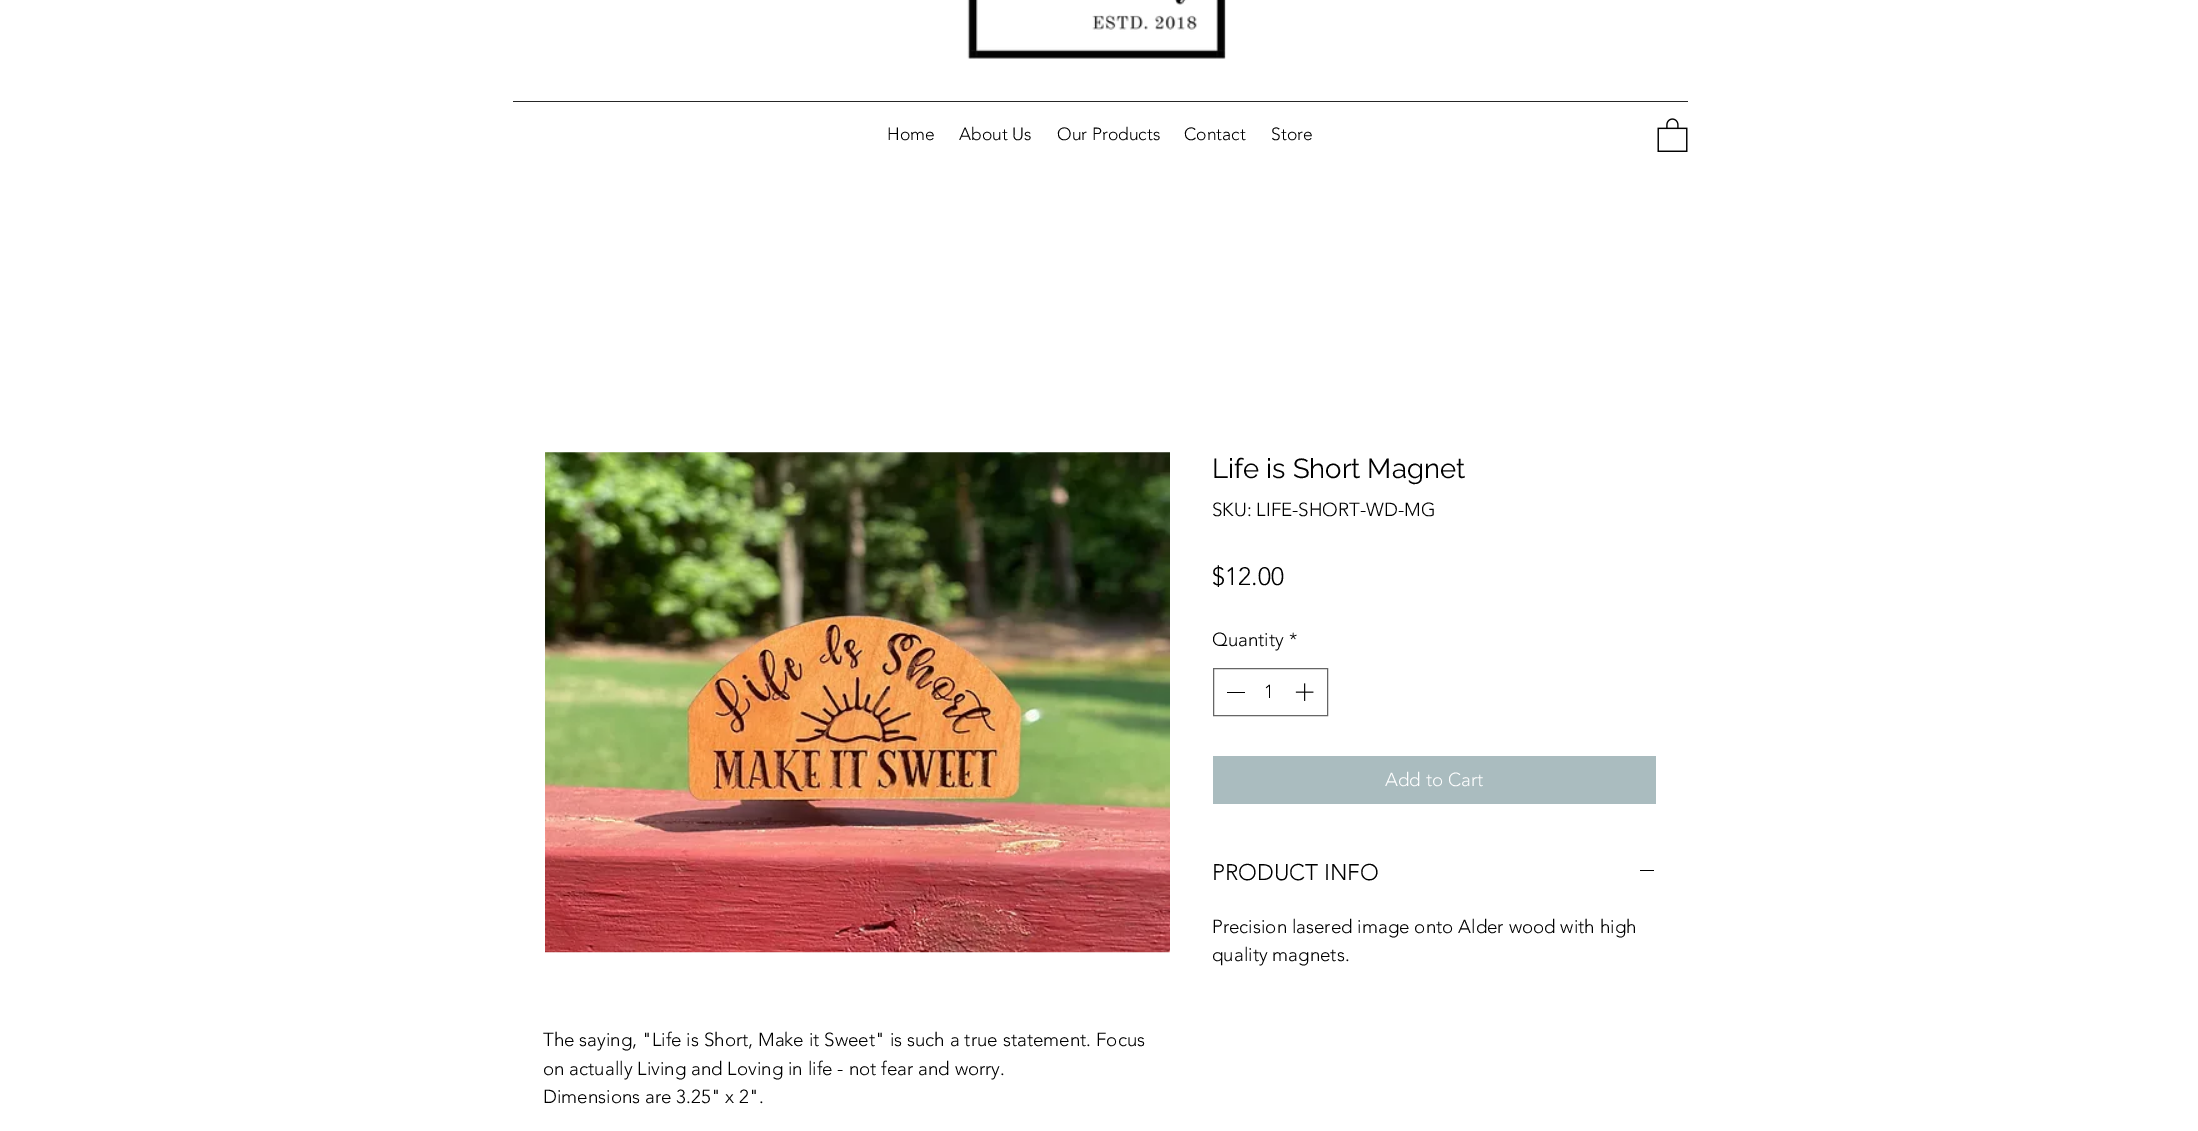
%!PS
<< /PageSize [2198 1131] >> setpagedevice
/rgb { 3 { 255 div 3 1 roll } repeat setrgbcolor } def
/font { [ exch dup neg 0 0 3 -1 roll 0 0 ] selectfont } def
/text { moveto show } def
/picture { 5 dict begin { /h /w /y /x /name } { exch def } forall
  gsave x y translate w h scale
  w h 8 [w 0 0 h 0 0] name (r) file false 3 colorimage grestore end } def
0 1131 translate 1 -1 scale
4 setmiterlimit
255 255 255 rgb
0 0 2198 1131 rectfill
(img_01.rgb) 967 0 259 59 picture
38 38 38 rgb
513 101 1175 1 rectfill
(img_02.rgb) 1657 118 31 34 picture
102 102 102 rgb
1213.5 668.5 114 47 rectstroke
0 0 0 rgb
1227 692 18 1 rectfill
(img_03.rgb) 1295 683 19 18 picture
170 188 191 rgb
1213 756 443 48 rectfill
0 0 0 rgb
1640 870 14 1 rectfill
(img_04.rgb) 545 452 625 501 picture
/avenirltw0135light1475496-Light 17.5 font
(Home) 887 140 text
(About Us) 959 140 text
(Our Products) 1057 140 text
(Contact) 1184 140 text
(Store) 1271 140 text
/Raleway-Regular 27.5 font
(Life is Short Magnet) 1212 478 text
/avenirltw0135light1475496-Light 18.75 font
(SKU: LIFE-SHORT-WD-MG) 1212 516 text
/avenirltw0135light1475496-Light 25 font
($12.00) 1212 585 text
/avenirltw0135light1475496-Light 18.75 font
(Quantity *) 1212 646 text
(1) 1264 698 text
255 255 255 rgb
(Add to Cart) 1385 786 text
/avenirltw0135light1475496-Light 22.5 font
0 0 0 rgb
(PRODUCT INFO) 1212 880 text
/avenirltw0135light1475496-Light 18.75 font
(Precision lasered image onto Alder wood with high) 1212 933 text
(quality magnets.) 1212 961 text
(The saying, "Life is Short, Make it Sweet" is such a true statement. Focus) 543 1046 text
(on actually Living and Loving in life - not fear and worry.) 543 1075 text
(Dimensions are 3.25" x 2".) 543 1103 text
showpage
